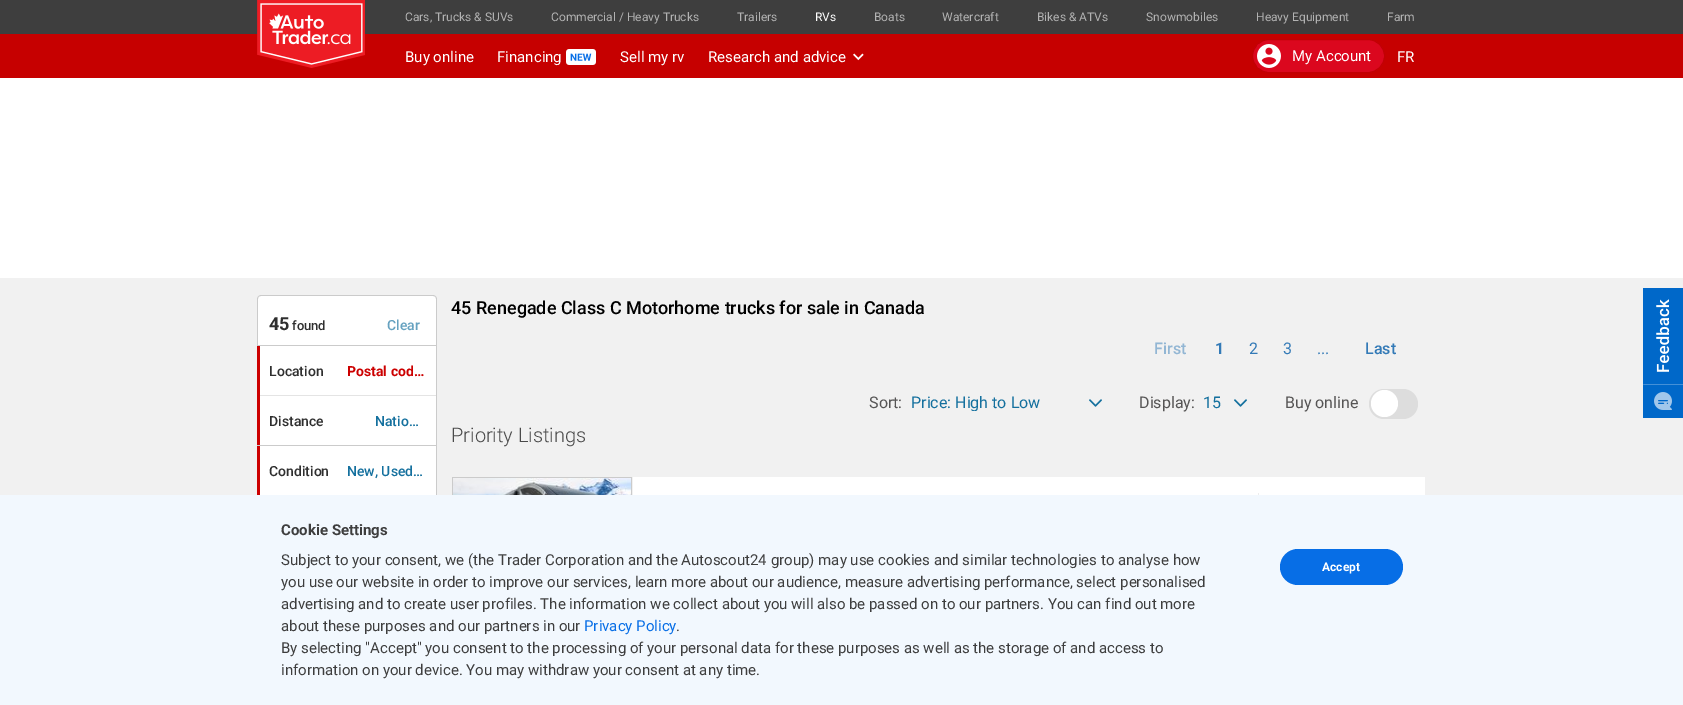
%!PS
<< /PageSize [1683 705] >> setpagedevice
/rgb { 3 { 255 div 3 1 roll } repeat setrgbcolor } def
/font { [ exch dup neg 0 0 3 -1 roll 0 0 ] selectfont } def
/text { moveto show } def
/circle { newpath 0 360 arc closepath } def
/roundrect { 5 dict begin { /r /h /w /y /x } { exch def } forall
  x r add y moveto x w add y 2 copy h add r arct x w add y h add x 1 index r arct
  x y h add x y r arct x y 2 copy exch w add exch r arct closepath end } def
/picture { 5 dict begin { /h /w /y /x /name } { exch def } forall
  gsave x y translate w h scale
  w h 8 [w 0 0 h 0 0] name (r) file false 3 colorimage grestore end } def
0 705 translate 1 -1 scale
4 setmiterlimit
241 241 241 rgb
0 0 1683 705 rectfill
62 62 62 rgb
0 0 1683 34 rectfill
198 0 0 rgb
0 34 1683 44 rectfill
(img_01.rgb) 257 0 108 68 picture
(img_02.rgb) 566 49 30 16 picture
(img_03.rgb) 853 53 11 8 picture
219 7 30 rgb
1252.5 39.5 132 33 16.5 roundrect gsave fill grestore
193 0 4 rgb
stroke
(img_04.rgb) 1257 44 24 24 picture
255 255 255 rgb
0 78 1683 200 rectfill
261 295 moveto 172 0 rlineto 2 0 4 2 4 4 rcurveto 0 46 rlineto -180 0 rlineto 0 -46 rlineto 0 -2 2 -4 4 -4 rcurveto closepath fill
203 203 203 rgb
261 295 moveto 172 0 rlineto 2 0 4 2 4 4 rcurveto 0 46 rlineto -180 0 rlineto 0 -46 rlineto 0 -2 2 -4 4 -4 rcurveto closepath 261 296 moveto 172 0 rlineto 2 0 3 1 3 3 rcurveto 0 46 rlineto -178 0 rlineto 0 -46 rlineto 0 -2 1 -3 3 -3 rcurveto closepath eofill
255 255 255 rgb
260 346 176 99 rectfill
203 203 203 rgb
257 345 180 1 rectfill
436 345 1 100 rectfill
228 228 228 rgb
258 395 178 1 rectfill
204 0 1 rgb
257 346 3 99 rectfill
255 255 255 rgb
260 446 176 49 rectfill
203 203 203 rgb
257 445 180 1 rectfill
436 445 1 50 rectfill
204 0 1 rgb
257 446 3 49 rectfill
(img_05.rgb) 1089 399 13 8 picture
(img_05.rgb) 1234 399 13 8 picture
221 221 221 rgb
1369 389 49 30 15 roundrect fill
255 255 255 rgb
1384.5 403.5 13.5 circle fill
632 477 793 18 rectfill
203 203 203 rgb
452.5 477.5 179 134 rectstroke
(img_06.rgb) 453 478 178 17 picture
237 237 237 rgb
1258 493 1 2 rectfill
242 248 254 rgb
0 495 1683 210 rectfill
7 110 230 rgb
1280 549 123 36 18 roundrect fill
(img_07.rgb) 1643 288 40 130 picture
/Roboto-Regular 12 font
178 178 178 rgb
(Cars, Trucks & SUVs) 405 21 text
(Commercial / Heavy Trucks) 551 21 text
(Trailers) 737 21 text
255 255 255 rgb
(RVs) 815 21 text
178 178 178 rgb
(Boats) 874 21 text
(Watercraft) 942 21 text
(Bikes & ATVs) 1037 21 text
(Snowmobiles) 1146 21 text
(Heavy Equipment) 1256 21 text
(Farm) 1387 21 text
/Roboto-Regular 15 font
255 255 255 rgb
(Buy online) 405 62 text
(Financing) 497 62 text
(Sell my rv) 620 62 text
(Research and advice) 708 62 text
(My Account) 1292 61 text
(FR) 1397 62 text
/Roboto-Bold 18 font
47 47 47 rgb
(45) 269 330 text
/Roboto-Medium 13 font
(found) 292 330 text
/Roboto-Medium 14 font
102 162 192 rgb
(Clear) 387 330 text
47 47 47 rgb
(Location) 269 376 text
/Roboto-Bold 14 font
204 0 0 rgb
(Postal cod…) 347 376 text
/Roboto-Medium 14 font
47 47 47 rgb
(Distance) 269 426 text
20 112 158 rgb
(Natio…) 375 426 text
47 47 47 rgb
(Condition) 269 476 text
20 112 158 rgb
(New, Used…) 347 476 text
/Roboto-Medium 18 font
0 0 0 rgb
(45 Renegade Class C Motorhome trucks for sale in Canada) 451 314 text
/Roboto-Medium 16 font
146 182 212 rgb
(First) 1154 354 text
/Roboto-Bold 16 font
51 122 183 rgb
(1) 1215 354 text
/Roboto-Regular 16 font
(2) 1249 354 text
(3) 1283 354 text
(...) 1317 354 text
/Roboto-Medium 16 font
(Last) 1365 354 text
/Roboto-Regular 16 font
86 85 85 rgb
(Sort:) 869 408 text
gsave
911 395 174 16 rectclip
20 112 158 rgb
(Price: High to Low) 911 408 text
grestore
(Display:) 1139 408 text
20 112 158 rgb
(15) 1203 408 text
86 85 85 rgb
(Buy online) 1285 408 text
/Roboto-Light 20 font
74 74 74 rgb
(Priority Listings) 451 442 text
/Roboto-Bold 15 font
62 62 62 rgb
(Cookie Settings) 281 535 text
/Roboto-Regular 15 font
(Subject to your consent, we \(the Trader Corporation and the Autoscout24 group\) may use cookies and similar technologies to analyse how) 281 565 text
(you use our website in order to improve our services, learn more about our audience, measure advertising performance, select personalised) 281 587 text
(advertising and to create user profiles. The information we collect about you will also be passed on to our partners. You can find out more) 281 609 text
(about these purposes and our partners in our) 281 631 text
7 110 230 rgb
(Privacy Policy) 584 631 text
62 62 62 rgb
(.) 676 631 text
(By selecting "Accept" you consent to the processing of your personal data for these purposes as well as the storage of and access to) 281 653 text
(information on your device. You may withdraw your consent at any time.) 281 675 text
/Roboto-Bold 12 font
255 255 255 rgb
(Accept) 1322 571 text
showpage
